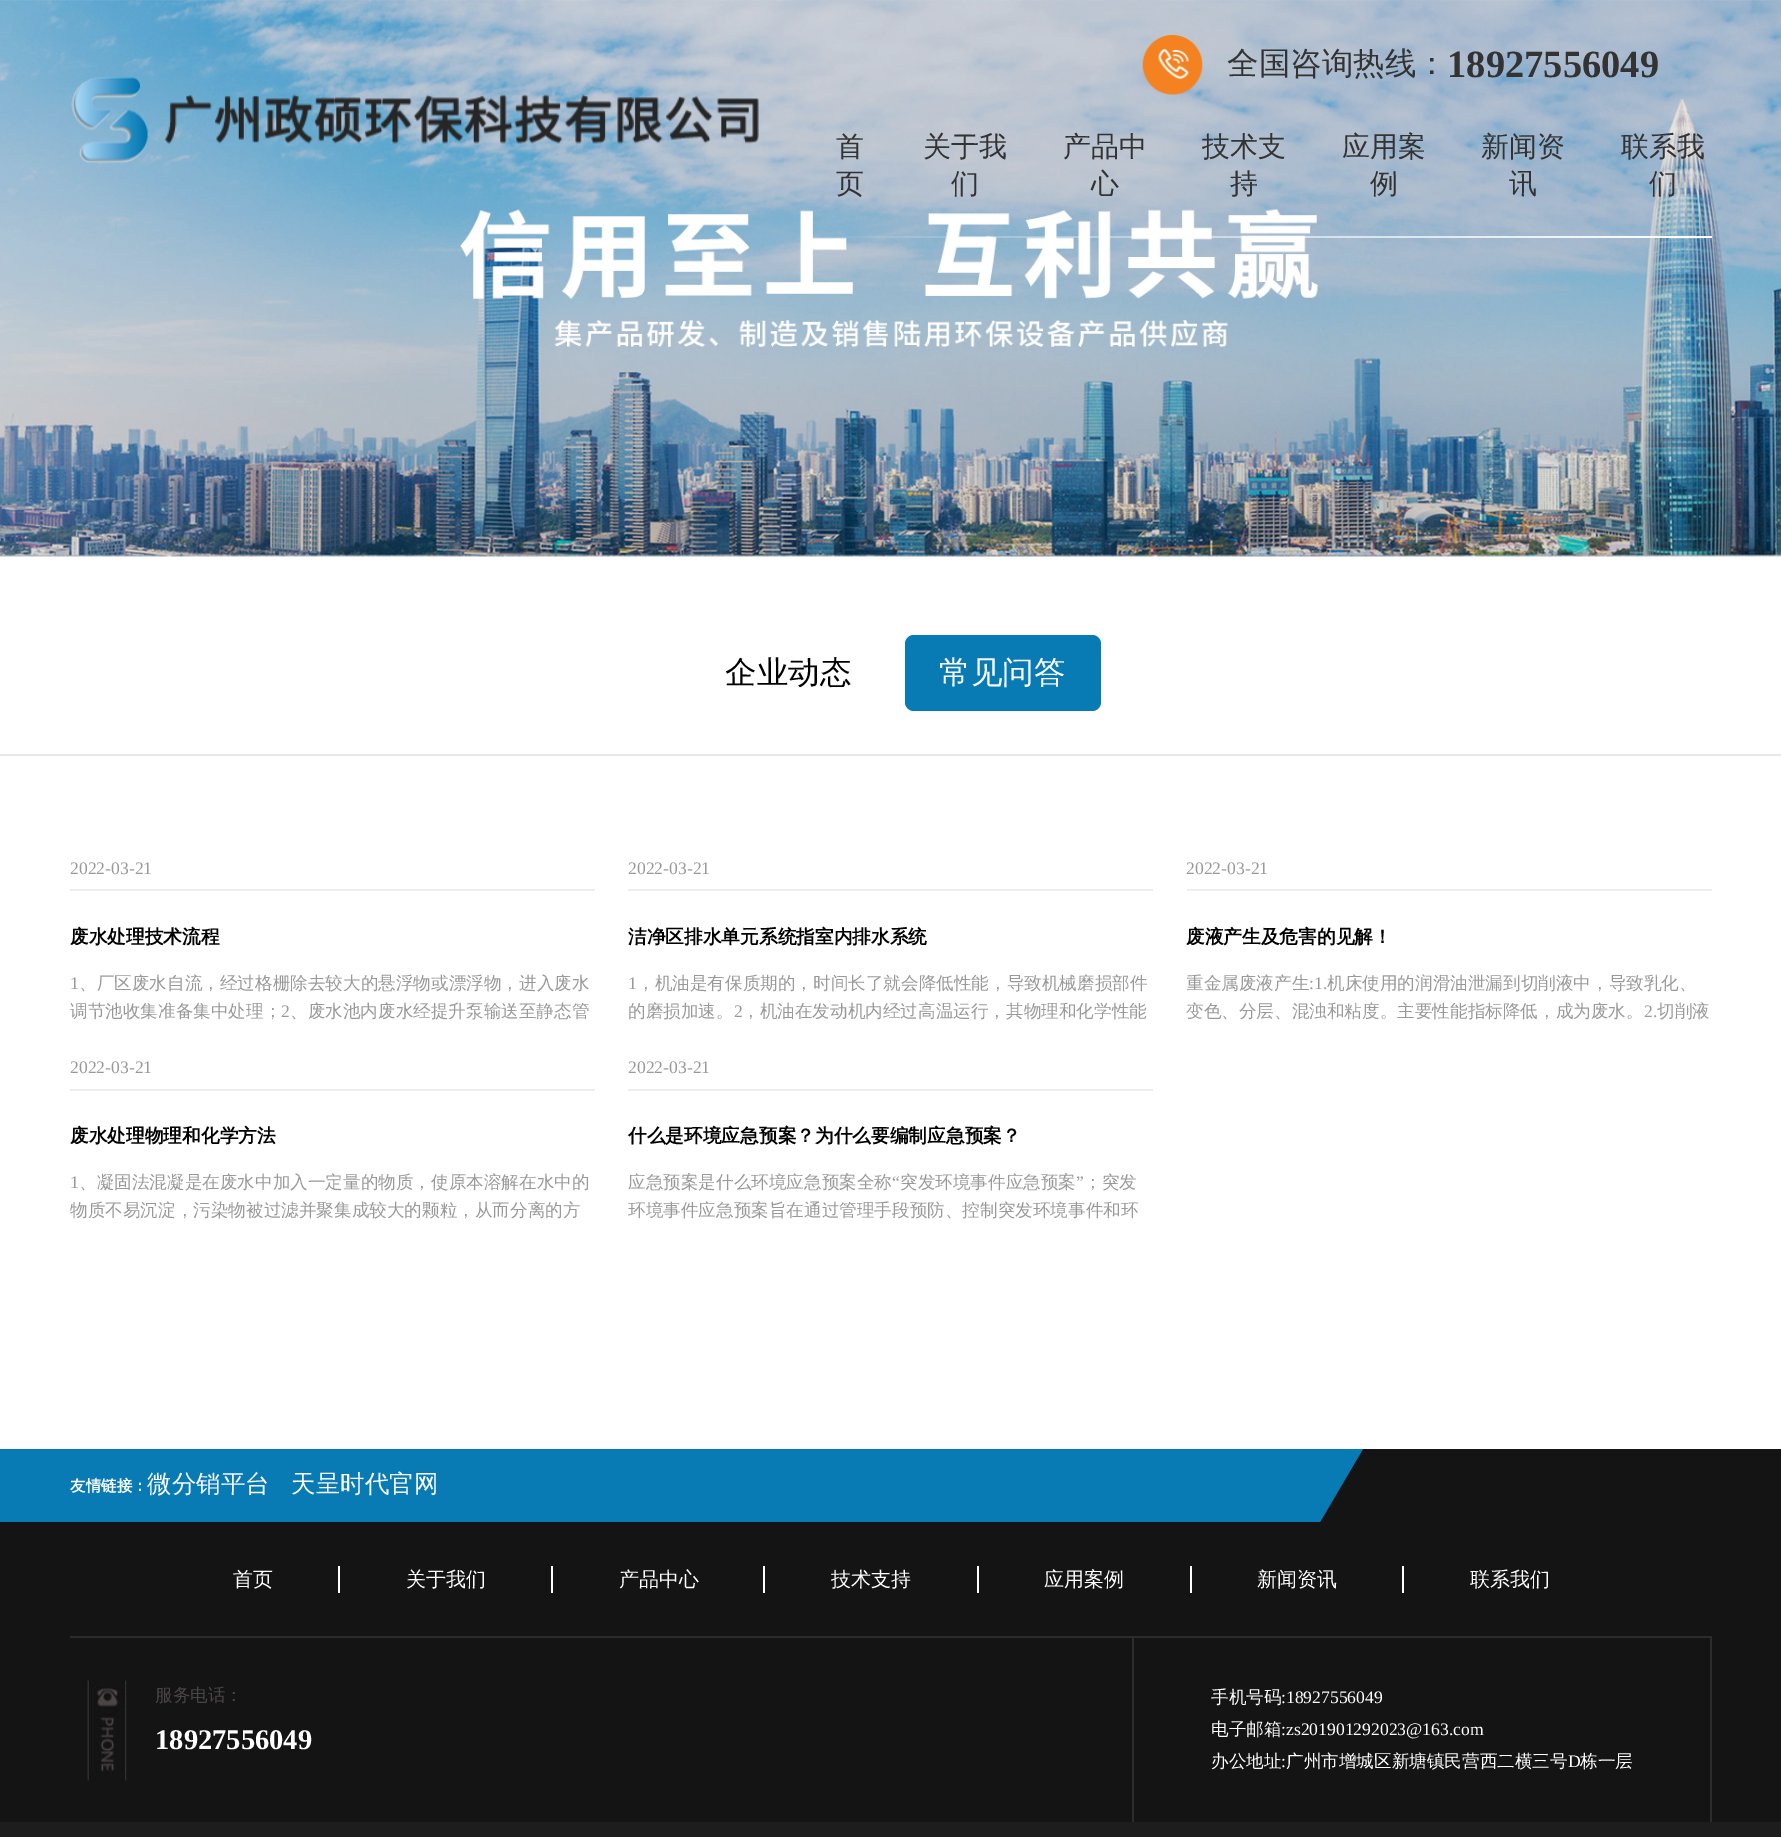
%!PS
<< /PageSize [1781 1837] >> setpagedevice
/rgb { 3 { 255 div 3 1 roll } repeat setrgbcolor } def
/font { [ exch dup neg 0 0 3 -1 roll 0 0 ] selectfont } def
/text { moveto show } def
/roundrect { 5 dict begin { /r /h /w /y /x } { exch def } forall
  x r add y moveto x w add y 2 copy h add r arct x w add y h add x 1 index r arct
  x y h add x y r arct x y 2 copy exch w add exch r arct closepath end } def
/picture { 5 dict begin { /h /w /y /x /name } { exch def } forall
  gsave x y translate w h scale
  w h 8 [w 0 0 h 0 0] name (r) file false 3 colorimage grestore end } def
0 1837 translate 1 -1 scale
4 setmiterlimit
255 255 255 rgb
0 0 1781 1837 rectfill
(img_03.rgb) 0 0 1781 557 picture
(img_01.rgb) 71 77 688 87 picture
(img_02.rgb) 1142 35 61 60 picture
233 233 233 rgb
0 754 1781 2 rectfill
9 123 180 rgb
905 635 196 76 9 roundrect fill
238 238 238 rgb
70 889 525 2 rectfill
628 889 525 2 rectfill
1187 889 525 2 rectfill
70 1089 525 2 rectfill
628 1089 525 2 rectfill
20 20 20 rgb
0 1449 1781 373 rectfill
9 123 180 rgb
-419 1449 moveto 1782 0 rlineto -43 73 rlineto -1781 0 rlineto closepath fill
44 44 44 rgb
70 1636 1642 2 rectfill
255 255 255 rgb
338 1566 2 27 rectfill
551 1566 2 27 rectfill
763 1566 2 27 rectfill
977 1566 2 27 rectfill
1190 1566 2 27 rectfill
1402 1566 2 27 rectfill
(img_04.rgb) 87 1679 40 103 picture
44 44 44 rgb
1710 1638 2 184 rectfill
1132 1638 2 184 rectfill
29 29 29 rgb
0 1822 1781 15 rectfill
/WenQuanYiZenHei-Medium 31.5 font
51 51 51 rgb
(全国咨询热线：) 1227 74 text
/LiberationSerif-Bold 38.5 font
(18927556049) 1447 77 text
/WenQuanYiZenHei-Medium 28 font
(首) 836 156 text
(页) 836 193 text
(关于我) 923 156 text
(们) 951 193 text
(产品中) 1063 156 text
(心) 1091 193 text
(技术支) 1202 156 text
(持) 1230 193 text
(应用案) 1342 156 text
(例) 1370 193 text
(新闻资) 1481 156 text
(讯) 1509 193 text
(联系我) 1621 156 text
(们) 1649 193 text
/WenQuanYiZenHei-Medium 31.5 font
0 0 0 rgb
(企业动态) 725 683 text
255 255 255 rgb
(常见问答) 939 683 text
/LiberationSerif-Regular 17.6 font
153 153 153 rgb
(2022-03-21) 70 874 text
/WenQuanYiZenHei-Bold 18.7 font
0 0 0 rgb
(废水处理技术流程) 70 943 text
/LiberationSerif-Regular 17.6 font
153 153 153 rgb
(1) 70 989 text
/WenQuanYiZenHei-Medium 17.6 font
(、厂区废水自流，经过格栅除去较大的悬浮物或漂浮物，进入废水) 79 989 text
(调节池收集准备集中处理；) 70 1017 text
/LiberationSerif-Regular 17.6 font
(2) 281 1017 text
/WenQuanYiZenHei-Medium 17.6 font
(、废水池内废水经提升泵输送至静态管) 290 1017 text
/LiberationSerif-Regular 17.6 font
(2022-03-21) 628 874 text
/WenQuanYiZenHei-Bold 18.7 font
0 0 0 rgb
(洁净区排水单元系统指室内排水系统) 628 943 text
/LiberationSerif-Regular 17.6 font
153 153 153 rgb
(1) 628 989 text
/WenQuanYiZenHei-Medium 17.6 font
(，机油是有保质期的，时间长了就会降低性能，导致机械磨损部件) 637 989 text
(的磨损加速。) 628 1017 text
/LiberationSerif-Regular 17.6 font
(2) 734 1017 text
/WenQuanYiZenHei-Medium 17.6 font
(，机油在发动机内经过高温运行，其物理和化学性能) 742 1017 text
/LiberationSerif-Regular 17.6 font
(2022-03-21) 1186 874 text
/WenQuanYiZenHei-Bold 18.7 font
0 0 0 rgb
(废液产生及危害的见解！) 1186 943 text
gsave
1187 970 525 56 rectclip
/WenQuanYiZenHei-Medium 17.6 font
153 153 153 rgb
(重金属废液产生) 1186 989 text
grestore
/LiberationSerif-Regular 17.6 font
153 153 153 rgb
(:1.) 1309 989 text
/WenQuanYiZenHei-Medium 17.6 font
(机床使用的润滑油泄漏到切削液中，导致乳化、) 1327 989 text
(变色、分层、混浊和粘度。主要性能指标降低，成为废水。) 1186 1017 text
/LiberationSerif-Regular 17.6 font
(2.) 1644 1017 text
/WenQuanYiZenHei-Medium 17.6 font
(切削液) 1657 1017 text
/LiberationSerif-Regular 17.6 font
(2022-03-21) 70 1073 text
/WenQuanYiZenHei-Bold 18.7 font
0 0 0 rgb
(废水处理物理和化学方法) 70 1142 text
/LiberationSerif-Regular 17.6 font
153 153 153 rgb
(1) 70 1188 text
/WenQuanYiZenHei-Medium 17.6 font
(、凝固法混凝是在废水中加入一定量的物质，使原本溶解在水中的) 79 1188 text
(物质不易沉淀，污染物被过滤并聚集成较大的颗粒，从而分离的方) 70 1216 text
/LiberationSerif-Regular 17.6 font
(2022-03-21) 628 1073 text
/WenQuanYiZenHei-Bold 18.7 font
0 0 0 rgb
(什么是环境应急预案？为什么要编制应急预案？) 628 1142 text
/WenQuanYiZenHei-Medium 17.6 font
153 153 153 rgb
(应急预案是什么环境应急预案全称) 628 1188 text
/LiberationSerif-Regular 17.6 font
(“) 892 1188 text
/WenQuanYiZenHei-Medium 17.6 font
(突发环境事件应急预案) 900 1188 text
/LiberationSerif-Regular 17.6 font
(”) 1076 1188 text
/WenQuanYiZenHei-Medium 17.6 font
(；突发) 1084 1188 text
(环境事件应急预案旨在通过管理手段预防、控制突发环境事件和环) 628 1216 text
/WenQuanYiZenHei-Bold 15.5 font
255 255 255 rgb
(友情链接：) 70 1491 text
/WenQuanYiZenHei-Medium 24.5 font
(微分销平台) 147 1492 text
(天呈时代官网) 291 1492 text
/WenQuanYiZenHei-Medium 20 font
(首页) 233 1586 text
(关于我们) 406 1586 text
(产品中心) 619 1586 text
(技术支持) 831 1586 text
(应用案例) 1044 1586 text
(新闻资讯) 1257 1586 text
(联系我们) 1470 1586 text
/WenQuanYiZenHei-Medium 17.6 font
75 70 70 rgb
(服务电话：) 155 1701 text
/LiberationSerif-Bold 28.5 font
255 255 255 rgb
(18927556049) 155 1749 text
/WenQuanYiZenHei-Medium 17.6 font
(手机号码) 1211 1703 text
/LiberationSerif-Regular 17.6 font
(:18927556049) 1281 1703 text
/WenQuanYiZenHei-Medium 17.6 font
(电子邮箱) 1211 1735 text
/LiberationSerif-Regular 17.6 font
(:zs201901292023@163.com) 1281 1735 text
/WenQuanYiZenHei-Medium 17.6 font
(办公地址) 1211 1767 text
/LiberationSerif-Regular 17.6 font
(:) 1281 1767 text
/WenQuanYiZenHei-Medium 17.6 font
(广州市增城区新塘镇民营西二横三号) 1286 1767 text
/LiberationSerif-Regular 17.6 font
(D) 1568 1767 text
/WenQuanYiZenHei-Medium 17.6 font
(栋一层) 1580 1767 text
showpage
